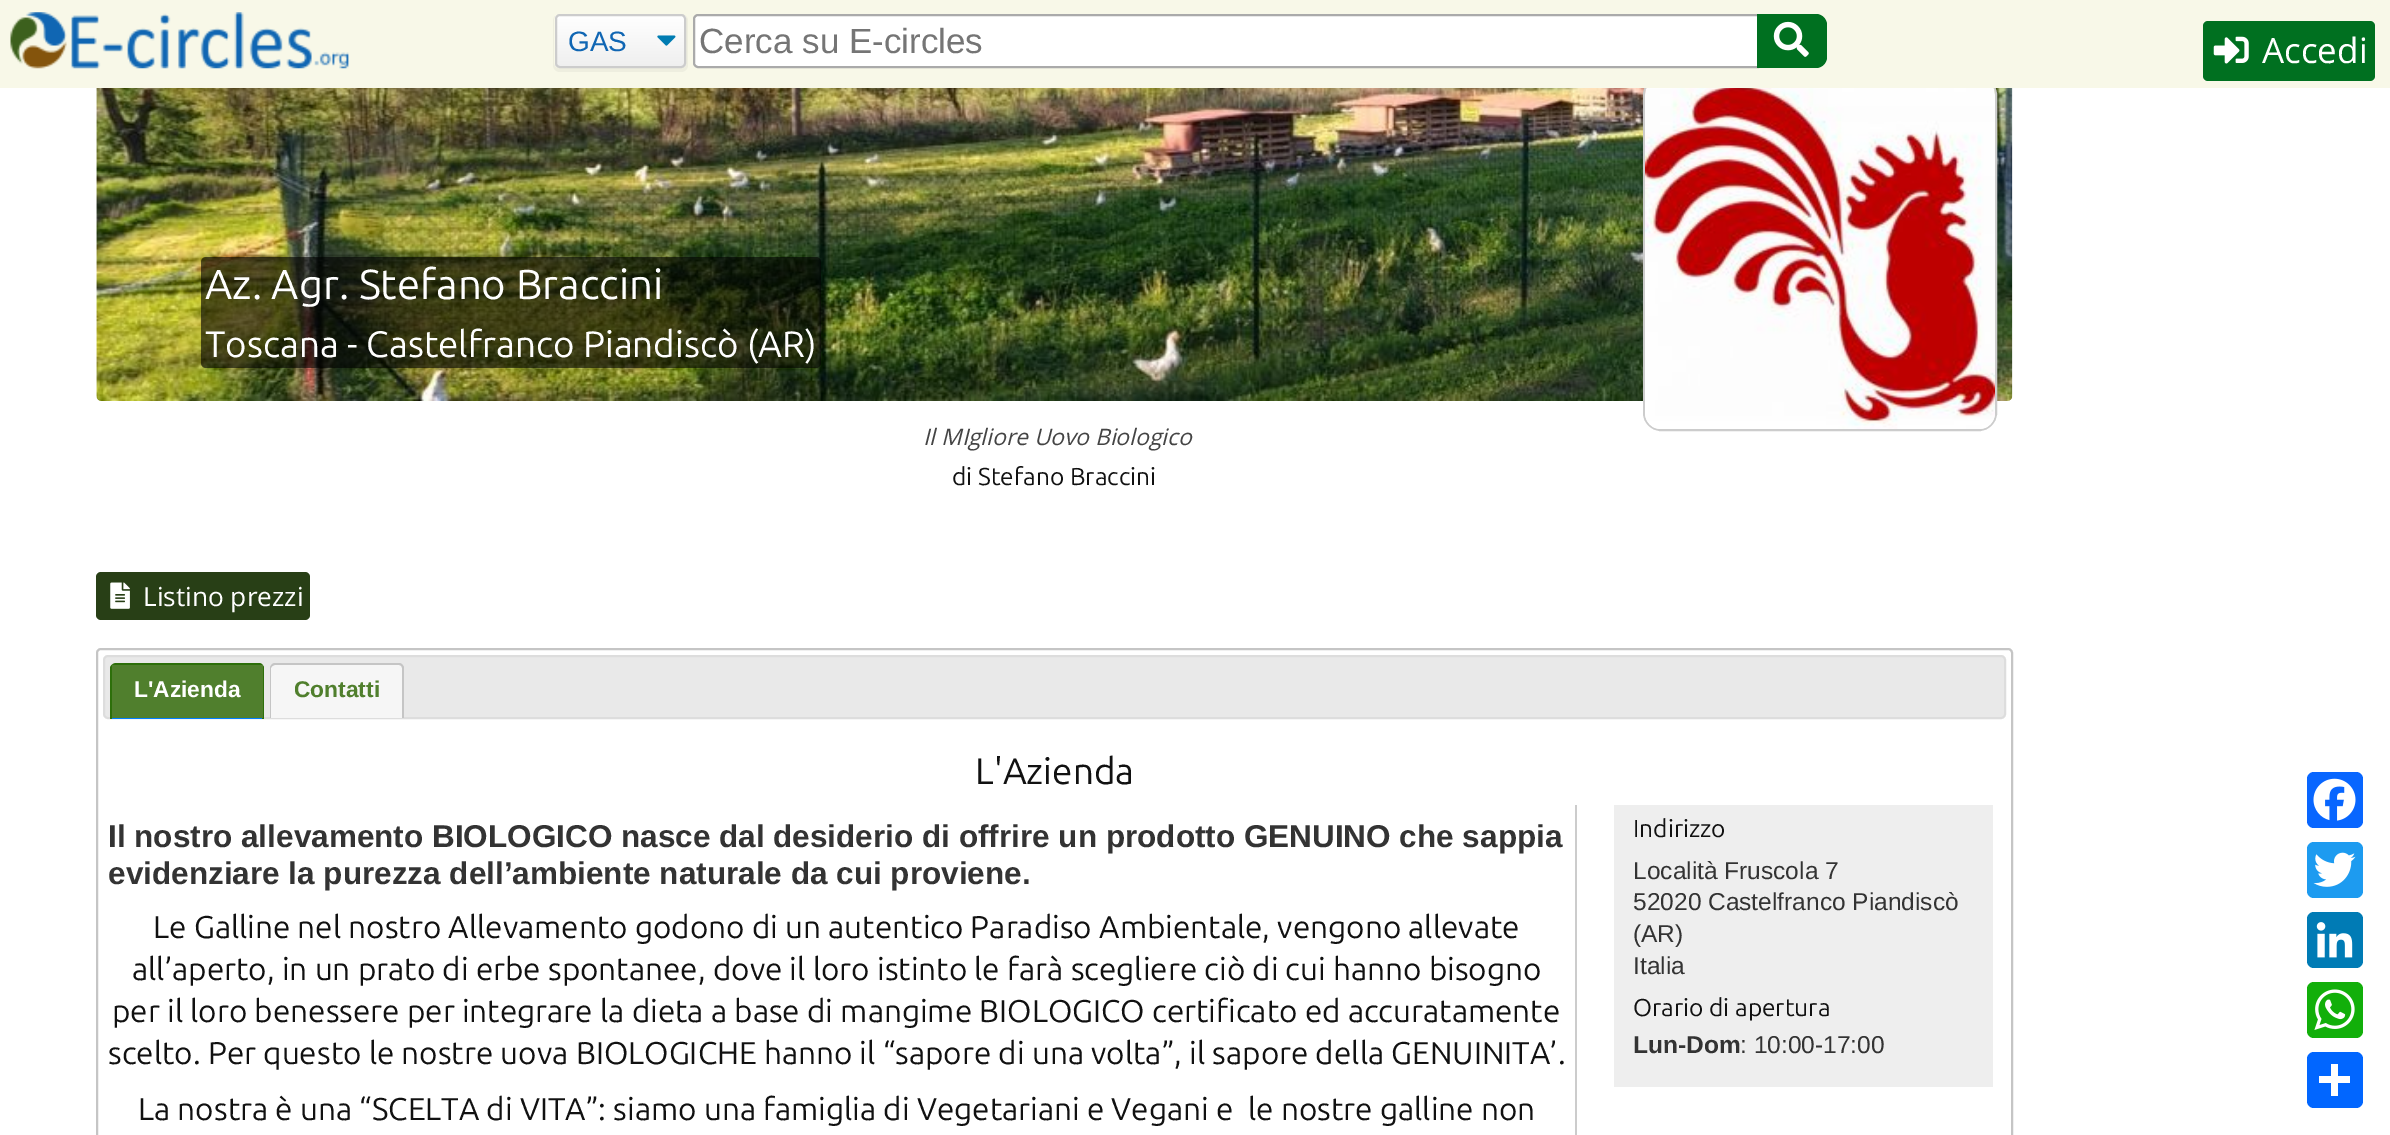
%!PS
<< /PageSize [2390 1135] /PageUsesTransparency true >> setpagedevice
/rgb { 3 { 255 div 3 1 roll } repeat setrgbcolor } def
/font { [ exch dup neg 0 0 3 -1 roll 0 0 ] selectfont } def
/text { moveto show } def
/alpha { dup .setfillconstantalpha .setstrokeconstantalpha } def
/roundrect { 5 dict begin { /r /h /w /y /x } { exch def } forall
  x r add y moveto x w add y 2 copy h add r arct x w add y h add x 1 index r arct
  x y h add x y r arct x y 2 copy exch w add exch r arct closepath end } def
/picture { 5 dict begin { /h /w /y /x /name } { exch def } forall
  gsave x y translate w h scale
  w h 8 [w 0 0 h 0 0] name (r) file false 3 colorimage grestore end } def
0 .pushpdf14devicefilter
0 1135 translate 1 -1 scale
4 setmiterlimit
255 255 255 rgb
0 0 2390 1135 rectfill
(img_05.rgb) 96 88 1917 313 picture
204 204 204 rgb
2 setlinewidth
1644 78 352 352 17 roundrect stroke
248 248 232 rgb
0 0 2390 88 rectfill
(img_01.rgb) 10 12 339 57 picture
238 238 223 rgb
681 14 moveto -1 0 rlineto 3 0 5 2 5 5 rcurveto 0 44 rlineto 0 3 -2 5 -5 5 rcurveto -121 0 rlineto -3 0 -5 -2 -5 -5 rcurveto 0 -44 rlineto 0 -1 1 -2 1 -3 rcurveto -1 1 -2 3 -2 5 rcurveto 0 44 rlineto 0 4 3 7 7 7 rcurveto 121 0 rlineto 4 0 7 -3 7 -7 rcurveto 0 -44 rlineto 0 -4 -3 -7 -7 -7 rcurveto closepath fill
gsave
555 14 131 54 5 roundrect clip newpath
gsave 555 16 moveto 131 0 rlineto 0 51 rlineto -131 0 rlineto closepath clip newpath
<< /ShadingType 2 /ColorSpace /DeviceRGB /Coords [620 16 620 67] /Extend [true true] /Function << /FunctionType 2 /Domain [0 1] /C0 [1 1 1] /C1 [0.937 0.937 0.937] /N 1 >> >> shfill grestore
grestore
(img_02.rgb) 657 35 19 11 picture
204 204 204 rgb
556 15 129 52 4 roundrect stroke
255 255 255 rgb
698 15 moveto 1060 0 rlineto 0 52 rlineto -1060 0 rlineto -2 0 -4 -2 -4 -4 rcurveto 0 -44 rlineto 0 -2 2 -4 4 -4 rcurveto closepath gsave fill grestore
170 170 170 rgb
stroke
0 112 32 rgb
1757 14 moveto 59 0 rlineto 6 0 11 5 11 11 rcurveto 0 32 rlineto 0 6 -5 11 -11 11 rcurveto -59 0 rlineto closepath fill
(img_03.rgb) 1773 21 36 36 picture
2203 21 172 60 5 roundrect fill
(img_04.rgb) 2213 36 36 28 picture
0.6 alpha
0 0 0 rgb
201 257 620 111 5 roundrect fill
1 alpha
(img_06.rgb) 1645 88 350 341 picture
40 63 22 rgb
96 572 214 48 5 roundrect fill
(img_07.rgb) 110 582 20 27 picture
197 197 197 rgb
97 649 1915 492 4 roundrect stroke
233 233 233 rgb
104 656 1901 62 4 roundrect gsave fill grestore
221 221 221 rgb
stroke
0 127 255 rgb
112 718 150 1 rectfill
45 111 10 rgb
116 663 moveto 143 0 rlineto 3 0 5 3 5 5 rcurveto 0 51 rlineto -154 0 rlineto 0 -51 rlineto 0 -2 3 -5 6 -5 rcurveto closepath 116 665 moveto 143 0 rlineto 2 0 3 2 3 3 rcurveto 0 51 rlineto -150 0 rlineto 0 -51 rlineto 0 -1 2 -3 4 -3 rcurveto closepath eofill
80 127 45 rgb
112 665 151 53 rectfill
246 246 246 rgb
275 665 moveto 124 0 rlineto 2 0 4 2 4 4 rcurveto 0 49 rlineto -132 0 rlineto 0 -49 rlineto 0 -2 2 -4 4 -4 rcurveto closepath fill
197 197 197 rgb
275 663 moveto 124 0 rlineto 3 0 5 3 5 5 rcurveto 0 50 rlineto -134 0 rlineto 0 -50 rlineto 0 -2 2 -5 5 -5 rcurveto closepath 275 665 moveto 124 0 rlineto 2 0 3 2 3 3 rcurveto 0 50 rlineto -131 0 rlineto 0 -50 rlineto 0 -1 2 -3 4 -3 rcurveto closepath eofill
204 204 204 rgb
1575 805 2 330 rectfill
238 238 238 rgb
1614 805 379 282 rectfill
8 102 255 rgb
2307 772 56 56 7 roundrect fill
(img_08.rgb) 2313 778 43 43 picture
29 155 240 rgb
2307 842 56 56 7 roundrect fill
(img_09.rgb) 2313 852 43 35 picture
0 123 181 rgb
2307 912 56 56 7 roundrect fill
(img_10.rgb) 2316 922 37 36 picture
18 175 10 rgb
2307 982 56 56 7 roundrect fill
(img_11.rgb) 2314 989 41 41 picture
1 102 255 rgb
2307 1052 56 56 7 roundrect fill
255 255 255 rgb
2331 1064 7 32 rectfill
2319 1076 31 7 rectfill
/LiberationSans-Regular 28 font
16 102 179 rgb
(GAS) 568 51 text
/LiberationSans-Regular 35 font
117 117 117 rgb
(Cerca su E-circles) 699 53 text
/OpenSans-Regular 35 font
255 255 255 rgb
(Accedi) 2262 63 text
/Ubuntu-Regular 41.9 font
(Az. Agr. Stefano Braccini) 205 299 text
/Ubuntu-Regular 36.75 font
(Toscana - Castelfranco Piandiscò \(AR\)) 205 357 text
/OpenSans-Italic 22.75 font
68 68 68 rgb
(Il MIgliore Uovo Biologico) 923 445 text
/Ubuntu-Regular 24.5 font
17 17 17 rgb
(di Stefano Braccini) 952 485 text
/OpenSans-Regular 26.25 font
255 255 255 rgb
(Listino prezzi) 143 606 text
/LiberationSans-Bold 22.75 font
(L'Azienda) 134 697 text
80 127 45 rgb
(Contatti) 294 697 text
/Ubuntu-Regular 36.75 font
17 17 17 rgb
(L'Azienda) 975 784 text
/LiberationSans-Bold 31.5 font
51 51 51 rgb
(Il nostro allevamento BIOLOGICO nasce dal desiderio di offrire un prodotto GENUINO che sappia) 108 847 text
(evidenziare la purezza dell’ambiente naturale da cui proviene.) 108 884 text
/Ubuntu-Regular 31.5 font
17 17 17 rgb
(Le Galline nel nostro Allevamento godono di un autentico Paradiso Ambientale, vengono allevate) 153 938 text
(all’aperto, in un prato di erbe spontanee, dove il loro istinto le farà scegliere ciò di cui hanno bisogno) 132 980 text
(per il loro benessere per integrare la dieta a base di mangime BIOLOGICO certificato ed accuratamente) 112 1022 text
(scelto. Per questo le nostre uova BIOLOGICHE hanno il “sapore di una volta”, il sapore della GENUINITA’.) 108 1064 text
(La nostra è una “SCELTA di VITA”: siamo una famiglia di Vegetariani e Vegani e) 138 1120 text
(le nostre galline non) 1248 1120 text
/Ubuntu-Regular 24.5 font
(Indirizzo) 1633 837 text
/LiberationSans-Regular 24.5 font
51 51 51 rgb
(Località Fruscola 7) 1633 879 text
(52020 Castelfranco Piandiscò) 1633 910 text
(\(AR\)) 1633 942 text
(Italia) 1633 974 text
/Ubuntu-Regular 24.5 font
17 17 17 rgb
(Orario di apertura) 1633 1016 text
/LiberationSans-Bold 24.5 font
51 51 51 rgb
(Lun-Dom) 1633 1053 text
/LiberationSans-Regular 24.5 font
(: 10:00-17:00) 1740 1053 text
.poppdf14devicefilter showpage
